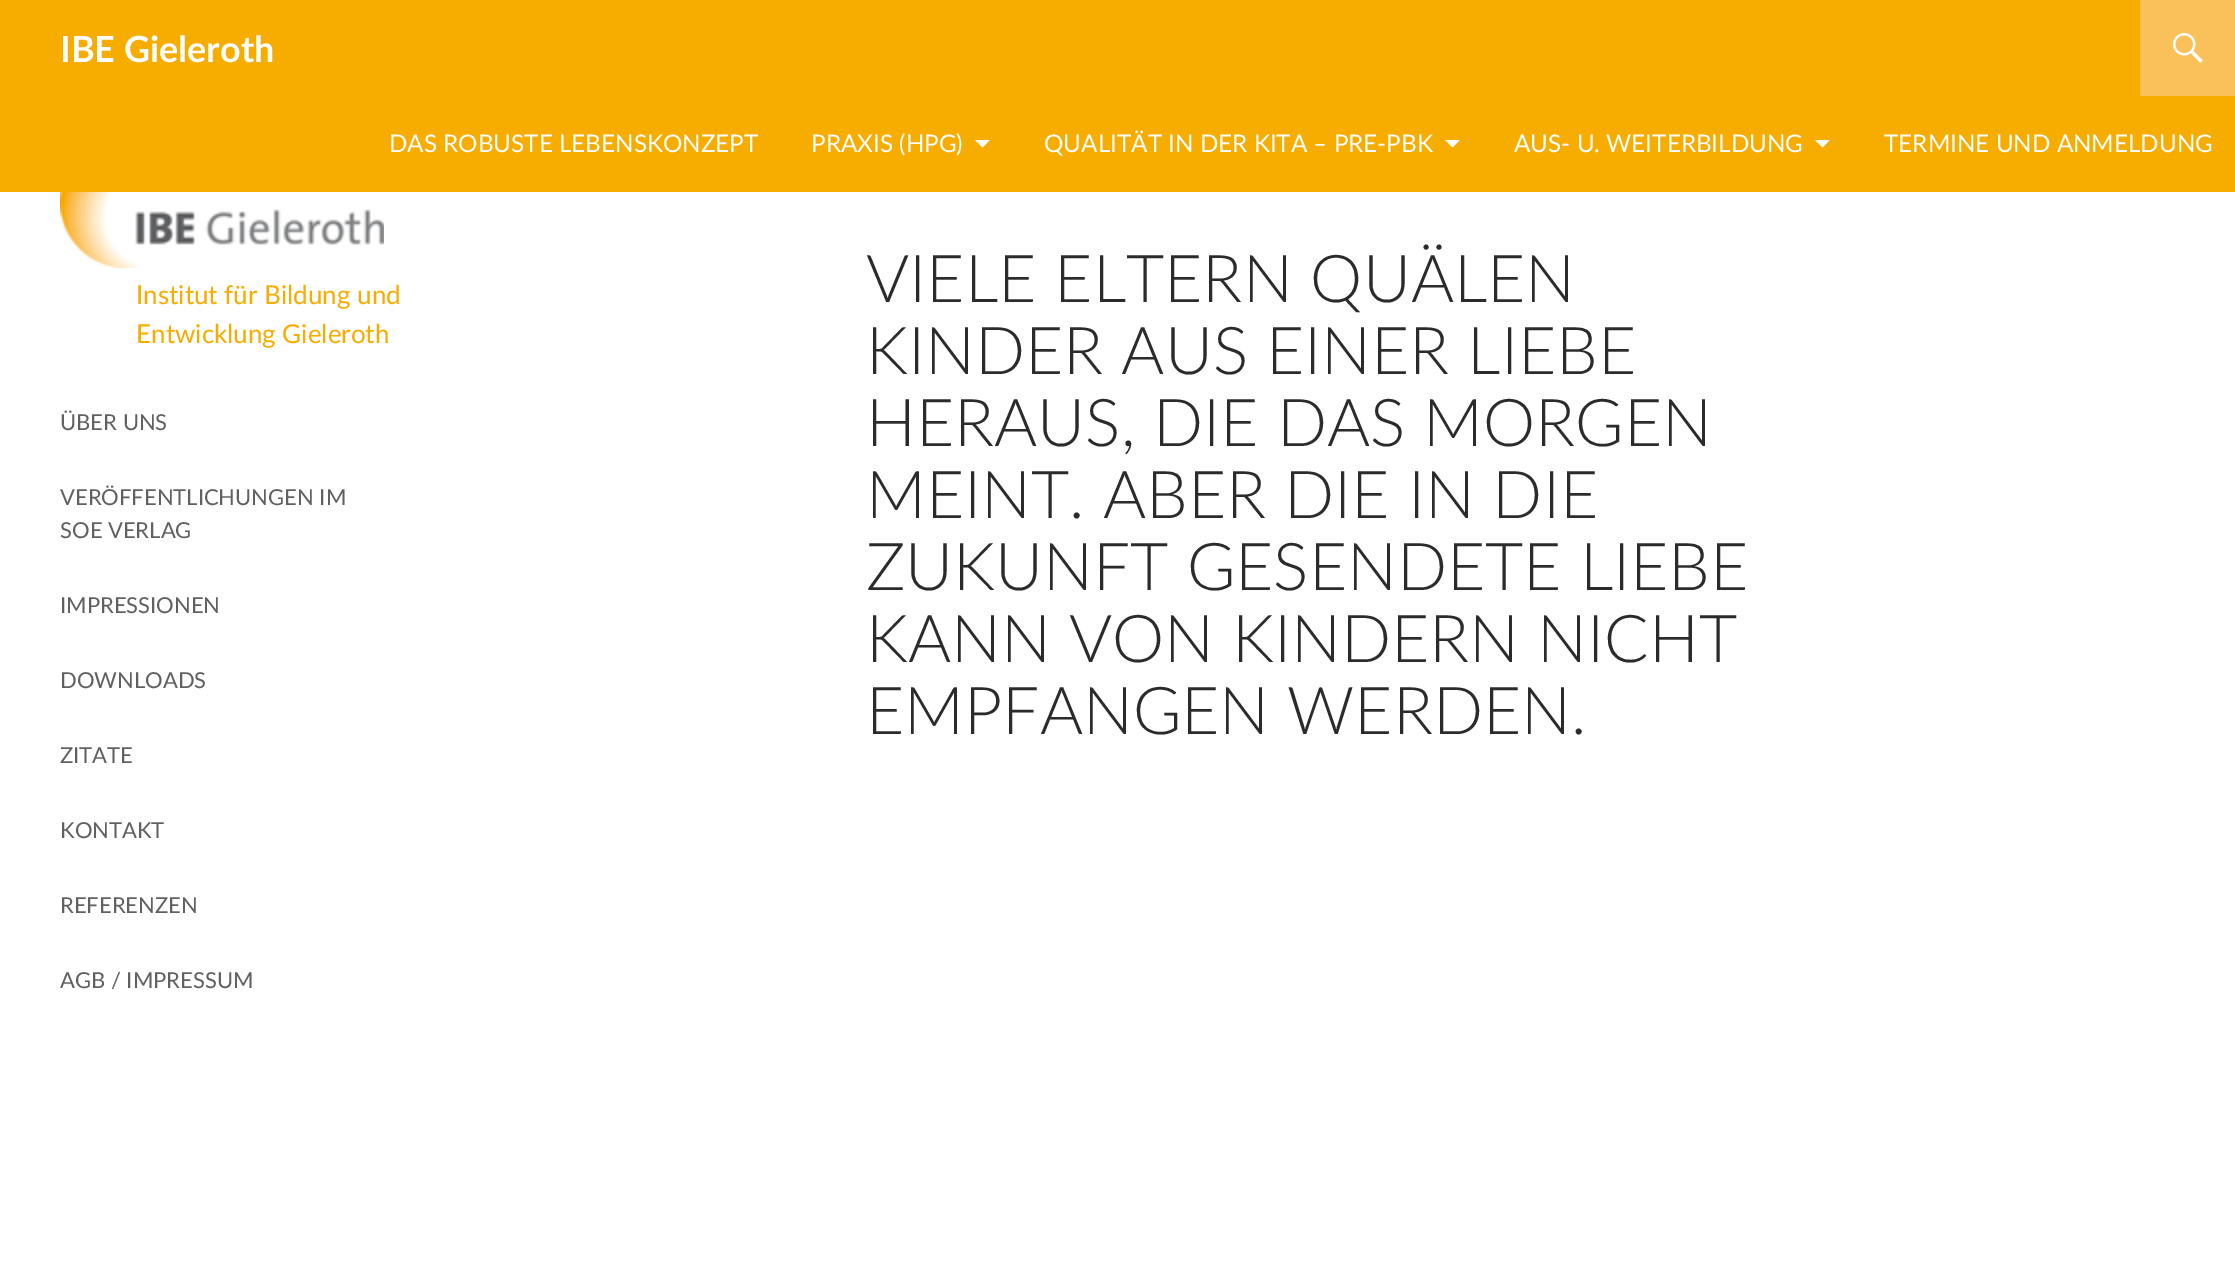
%!PS
<< /PageSize [2235 1282] >> setpagedevice
/rgb { 3 { 255 div 3 1 roll } repeat setrgbcolor } def
/font { [ exch dup neg 0 0 3 -1 roll 0 0 ] selectfont } def
/text { moveto show } def
/picture { 5 dict begin { /h /w /y /x /name } { exch def } forall
  gsave x y translate w h scale
  w h 8 [w 0 0 h 0 0] name (r) file false 3 colorimage grestore end } def
0 1282 translate 1 -1 scale
4 setmiterlimit
255 255 255 rgb
0 0 2235 1282 rectfill
247 172 0 rgb
0 0 2235 192 rectfill
250 192 89 rgb
2140 0 95 96 rectfill
(img_01.rgb) 2173 33 30 30 picture
255 255 255 rgb
975 140 moveto 7.5 7.5 rlineto 7.5 -7.5 rlineto closepath fill
1445 140 moveto 7.5 7.5 rlineto 7.5 -7.5 rlineto closepath fill
1815 140 moveto 7.5 7.5 rlineto 7.5 -7.5 rlineto closepath fill
(img_02.rgb) 60 192 324 76 picture
/Lato-Bold 36 font
(IBE Gieleroth) 60 62 text
/Lato-Regular 24.25 font
(DAS ROBUSTE LEBENSKONZEPT) 389 152 text
(PRAXIS \(HPG\)) 811 152 text
(QUALITÄT IN DER KITA – PRE-PBK) 1044 152 text
(AUS- U. WEITERBILDUNG) 1514 152 text
(TERMINE UND ANMELDUNG) 1884 152 text
/Lato-Regular 26 font
247 172 0 rgb
(Institut für Bildung und) 136 304 text
(Entwicklung Gieleroth) 136 343 text
/Lato-Regular 22 font
96 96 98 rgb
(ÜBER UNS) 60 430 text
(VERÖFFENTLICHUNGEN IM) 60 505 text
(SOE VERLAG) 60 538 text
(IMPRESSIONEN) 60 613 text
(DOWNLOADS) 60 688 text
(ZITATE) 60 763 text
(KONTAKT) 60 838 text
(REFERENZEN) 60 913 text
(AGB / IMPRESSUM) 60 988 text
/Lato-Light 66 font
43 43 43 rgb
(VIELE ELTERN QUÄLEN) 866 302 text
(KINDER AUS EINER LIEBE) 866 374 text
(HERAUS, DIE DAS MORGEN) 866 446 text
(MEINT. ABER DIE IN DIE) 866 518 text
(ZUKUNFT GESENDETE LIEBE) 866 590 text
(KANN VON KINDERN NICHT) 866 662 text
(EMPFANGEN WERDEN.) 866 734 text
showpage
